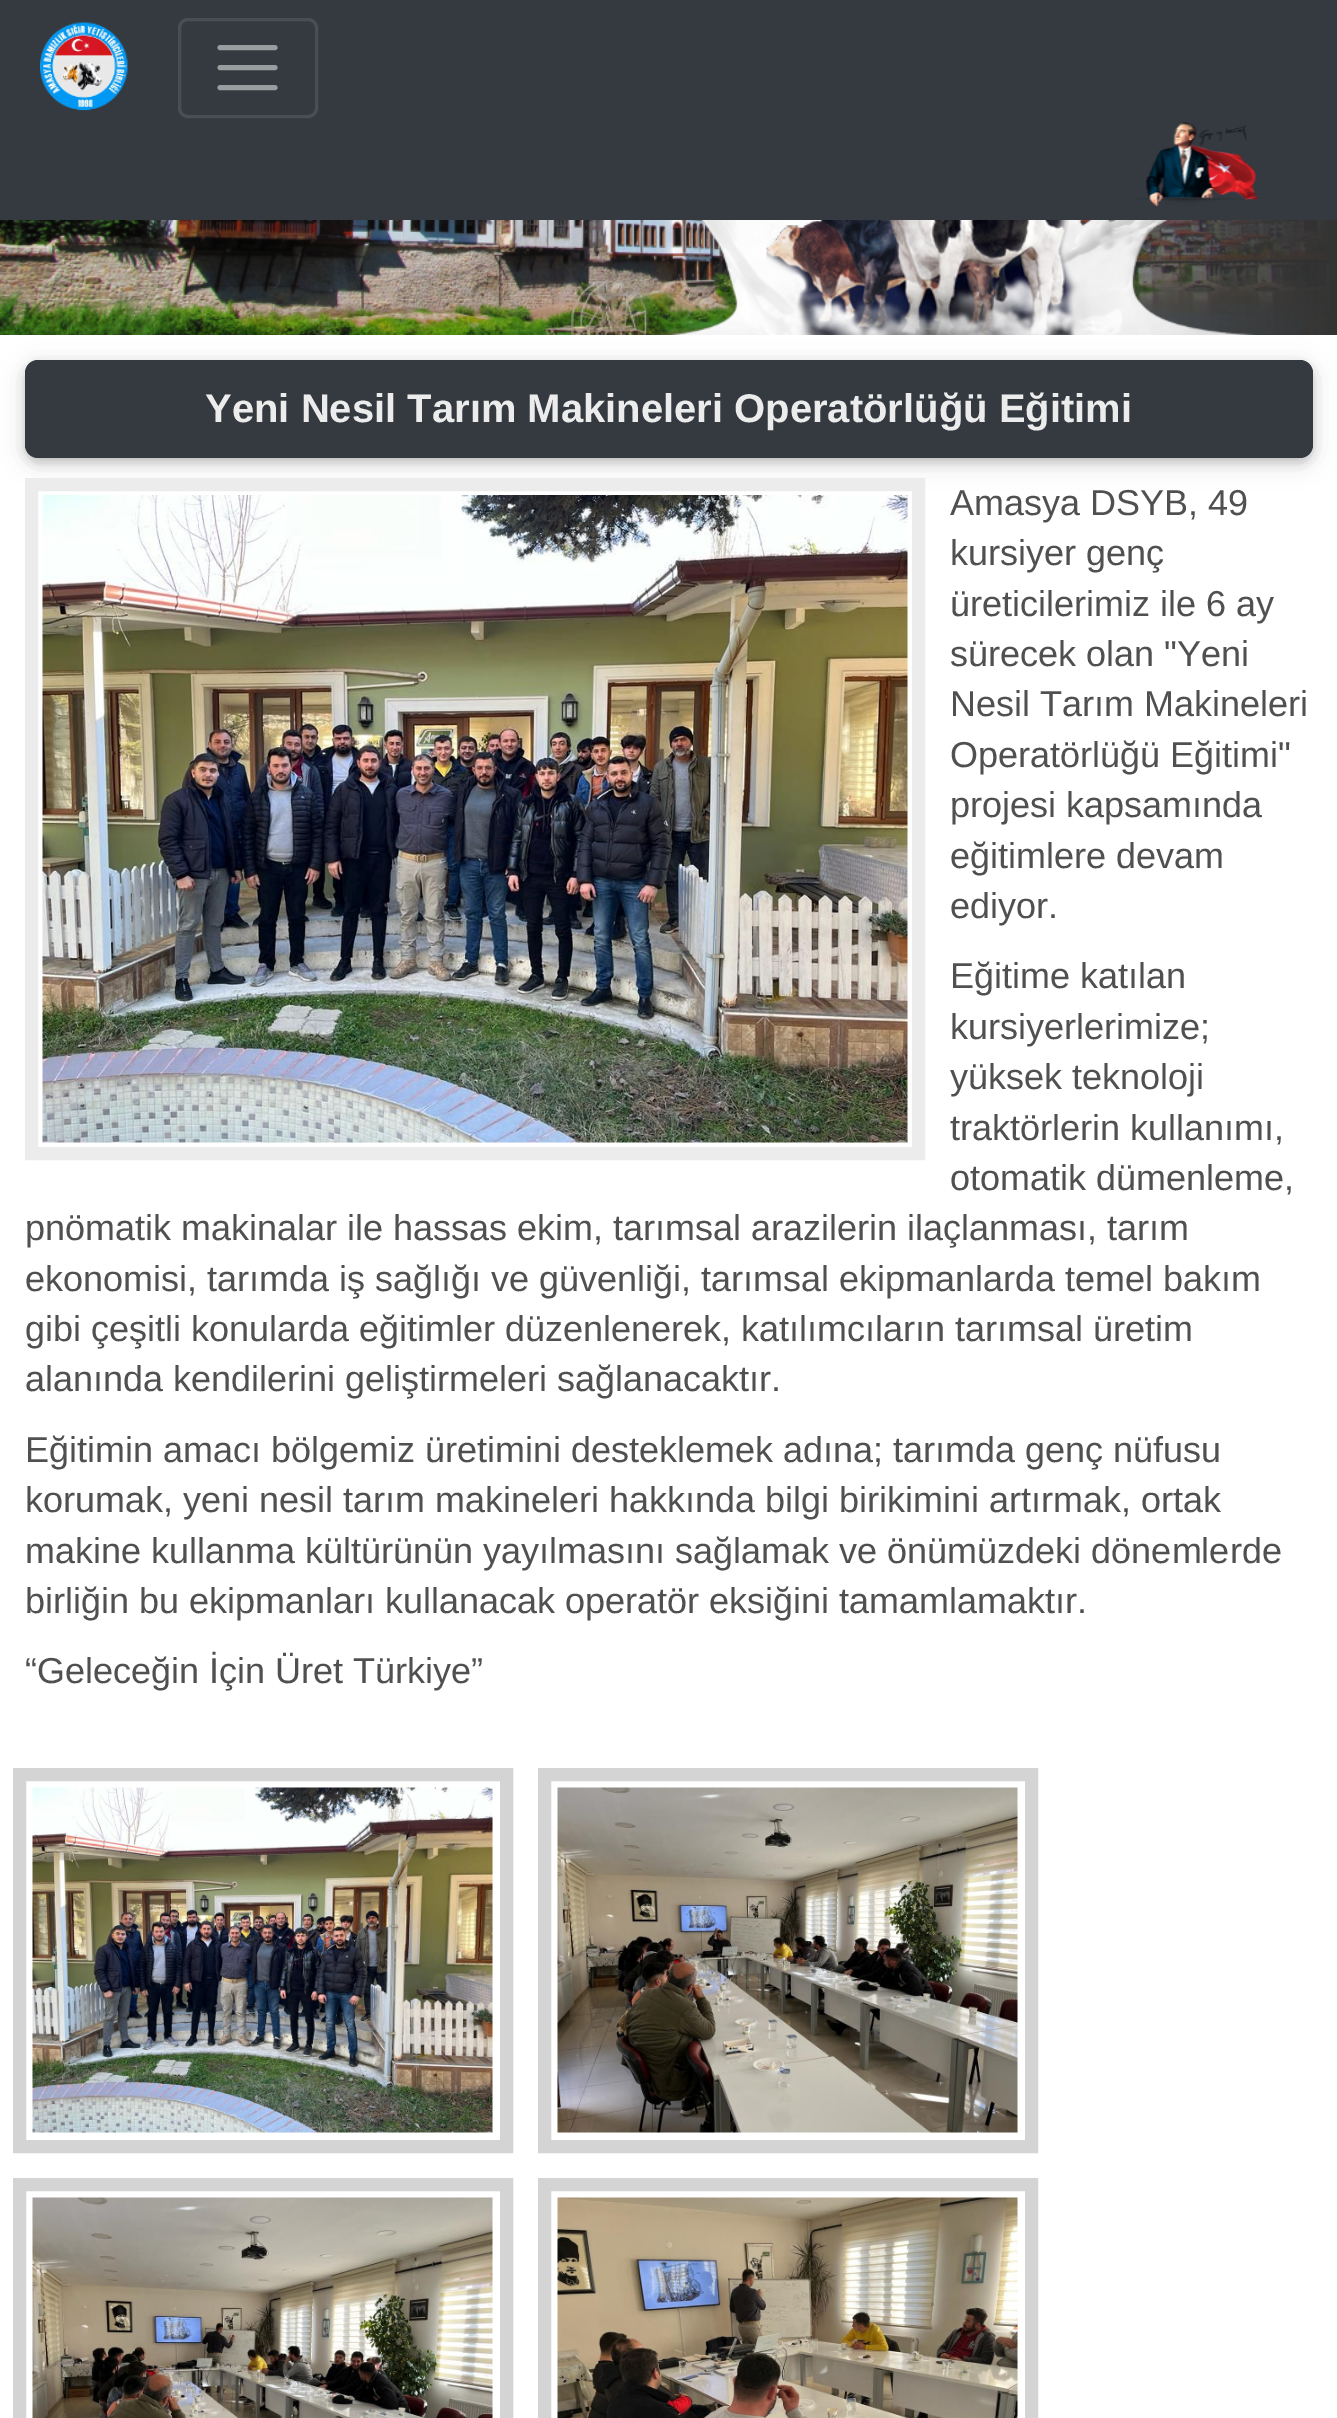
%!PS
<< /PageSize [1337 2418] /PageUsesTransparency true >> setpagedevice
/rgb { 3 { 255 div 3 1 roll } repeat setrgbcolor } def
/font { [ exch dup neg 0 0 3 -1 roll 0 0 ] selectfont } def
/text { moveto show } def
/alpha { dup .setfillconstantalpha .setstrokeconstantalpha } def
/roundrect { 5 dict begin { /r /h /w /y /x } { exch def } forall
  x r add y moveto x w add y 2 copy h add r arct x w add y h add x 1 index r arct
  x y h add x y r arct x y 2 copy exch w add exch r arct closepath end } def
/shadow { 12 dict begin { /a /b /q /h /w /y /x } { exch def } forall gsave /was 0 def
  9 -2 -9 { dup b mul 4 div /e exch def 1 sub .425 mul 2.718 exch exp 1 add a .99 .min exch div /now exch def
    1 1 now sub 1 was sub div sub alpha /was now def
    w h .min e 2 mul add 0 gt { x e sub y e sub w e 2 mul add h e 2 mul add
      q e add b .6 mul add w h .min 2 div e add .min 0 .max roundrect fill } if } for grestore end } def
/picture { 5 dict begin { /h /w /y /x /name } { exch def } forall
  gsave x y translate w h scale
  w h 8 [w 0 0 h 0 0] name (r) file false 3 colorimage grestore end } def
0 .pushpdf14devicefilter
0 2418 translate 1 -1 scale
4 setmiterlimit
255 255 255 rgb
0 0 1337 2418 rectfill
52 58 64 rgb
0 0 1337 220 rectfill
(img_01.rgb) 40 22 88 89 picture
72 78 83 rgb
3 setlinewidth
179.5 19.5 137 97 8.5 roundrect stroke
154 157 160 rgb
5 setlinewidth
1 setlinecap
220 47.5 moveto 55 0 rlineto 220 67.5 moveto 55 0 rlineto 220 87.5 moveto 55 0 rlineto stroke
(img_02.rgb) 1135 122 124 85 picture
51 51 51 rgb
1080 220 257 115 rectfill
0 0 0 rgb
25 365 1288 98 13 12.5 0.12 shadow
(img_03.rgb) 0 220 1329 115 picture
25 365 1288 98 13 5 0.16 shadow
52 58 64 rgb
25 360 1288 98 13 roundrect fill
236 236 236 rgb
13 setlinewidth
0 setlinecap
31.5 484.5 887 669 rectstroke
(img_04.rgb) 42 495 866 648 picture
212 212 212 rgb
19.5 1774.5 487 372 rectstroke
(img_05.rgb) 32 1787 461 346 picture
544.5 1774.5 487 372 rectstroke
(img_06.rgb) 557 1787 461 346 picture
19.5 2184.5 487 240 rectstroke
(img_07.rgb) 32 2197 461 221 picture
544.5 2184.5 487 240 rectstroke
(img_08.rgb) 557 2197 461 221 picture
/LiberationSans-Bold 40 font
236 236 236 rgb
(Yeni Nesil Tarım Makineleri Operatörlüğü Eğitimi) 205 422 text
/LiberationSans-Regular 36 font
80 80 80 rgb
(Amasya DSYB, 49) 950 515 text
(kursiyer genç) 950 565 text
(üreticilerimiz ile 6 ay) 950 616 text
(sürecek olan "Yeni) 950 666 text
(Nesil Tarım Makineleri) 950 716 text
(Operatörlüğü Eğitimi") 950 767 text
(projesi kapsamında) 950 817 text
(eğitimlere devam) 950 868 text
(ediyor.) 950 918 text
(Eğitime katılan) 950 988 text
(kursiyerlerimize;) 950 1039 text
(yüksek teknoloji) 950 1089 text
(traktörlerin kullanımı,) 950 1140 text
(otomatik dümenleme,) 950 1190 text
(pnömatik makinalar ile hassas ekim, tarımsal arazilerin ilaçlanması, tarım) 25 1240 text
(ekonomisi, tarımda iş sağlığı ve güvenliği, tarımsal ekipmanlarda temel bakım) 25 1291 text
(gibi çeşitli konularda eğitimler düzenlenerek, katılımcıların tarımsal üretim) 25 1341 text
(alanında kendilerini geliştirmeleri sağlanacaktır.) 25 1391 text
(Eğitimin amacı bölgemiz üretimini desteklemek adına; tarımda genç nüfusu) 25 1462 text
(korumak, yeni nesil tarım makineleri hakkında bilgi birikimini artırmak, ortak) 25 1512 text
(makine kullanma kültürünün yayılmasını sağlamak ve önümüzdeki dönemlerde) 25 1563 text
(birliğin bu ekipmanları kullanacak operatör eksiğini tamamlamaktır.) 25 1613 text
(“Geleceğin İçin Üret Türkiye”) 25 1683 text
.poppdf14devicefilter showpage
